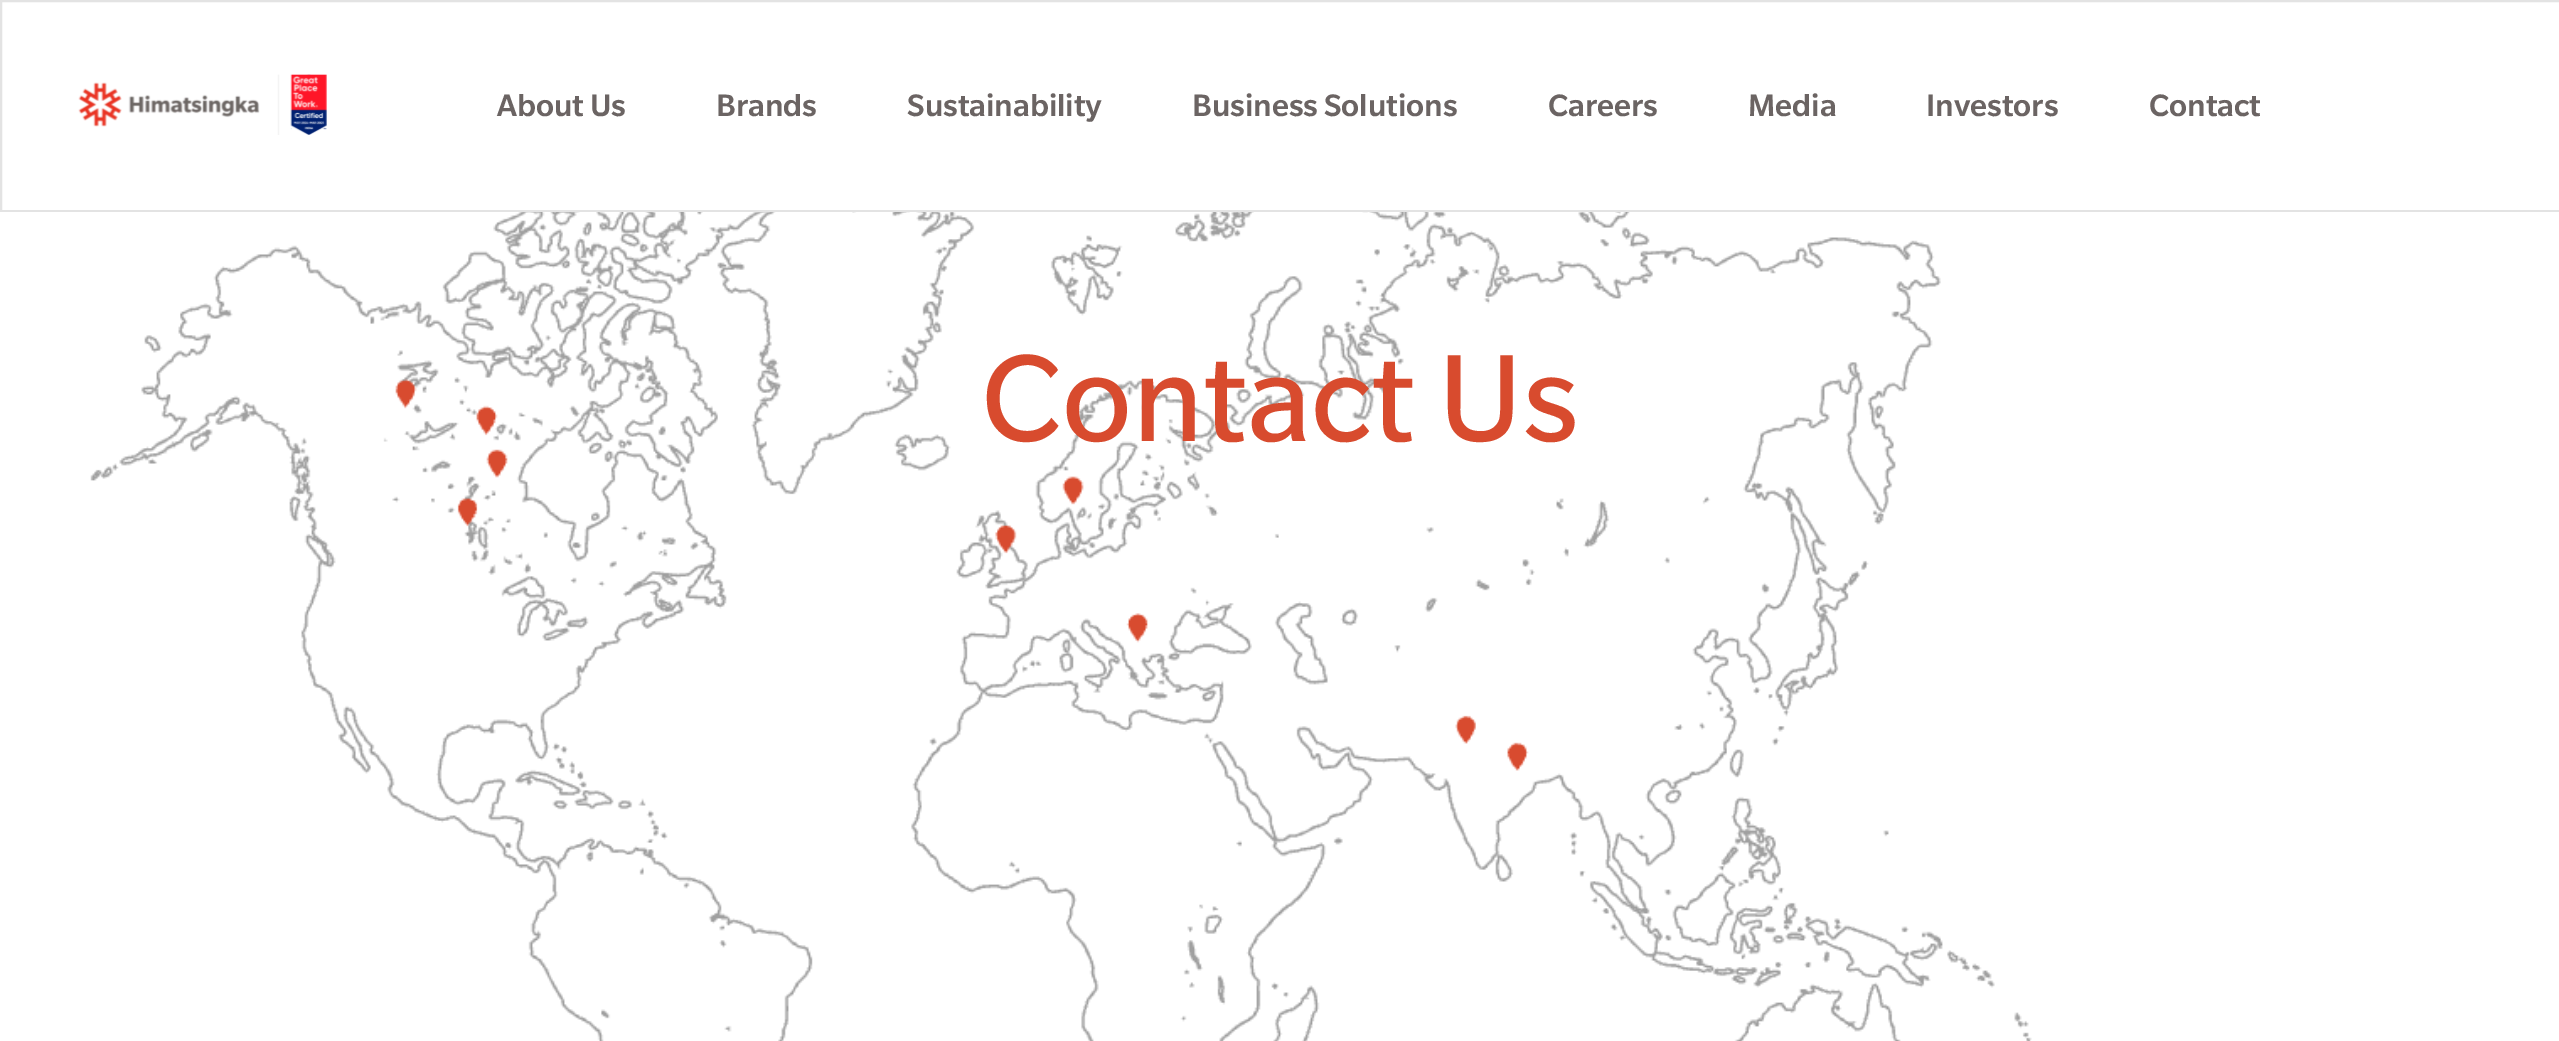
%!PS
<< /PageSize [2559 1041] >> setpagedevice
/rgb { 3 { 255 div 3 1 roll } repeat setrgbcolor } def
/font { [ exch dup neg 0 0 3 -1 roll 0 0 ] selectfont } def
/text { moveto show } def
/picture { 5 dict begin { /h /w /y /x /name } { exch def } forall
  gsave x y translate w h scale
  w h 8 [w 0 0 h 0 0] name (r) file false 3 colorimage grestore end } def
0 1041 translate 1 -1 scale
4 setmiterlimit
255 255 255 rgb
0 0 2559 1041 rectfill
227 227 227 rgb
2 setlinewidth
1 1 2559 210 rectstroke
(img_01.rgb) 78 74 249 61 picture
(img_02.rgb) 0 212 2559 829 picture
/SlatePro-Medium 33.75 font
107 100 99 rgb
(About Us) 497 116 text
(Brands) 716 116 text
(Sustainability) 907 116 text
(Business Solutions) 1192 116 text
(Careers) 1548 116 text
(Media) 1748 116 text
(Investors) 1926 116 text
(Contact) 2149 116 text
/SlatePro-Regular 135 font
216 75 46 rgb
(Contact Us) 981 441 text
showpage
